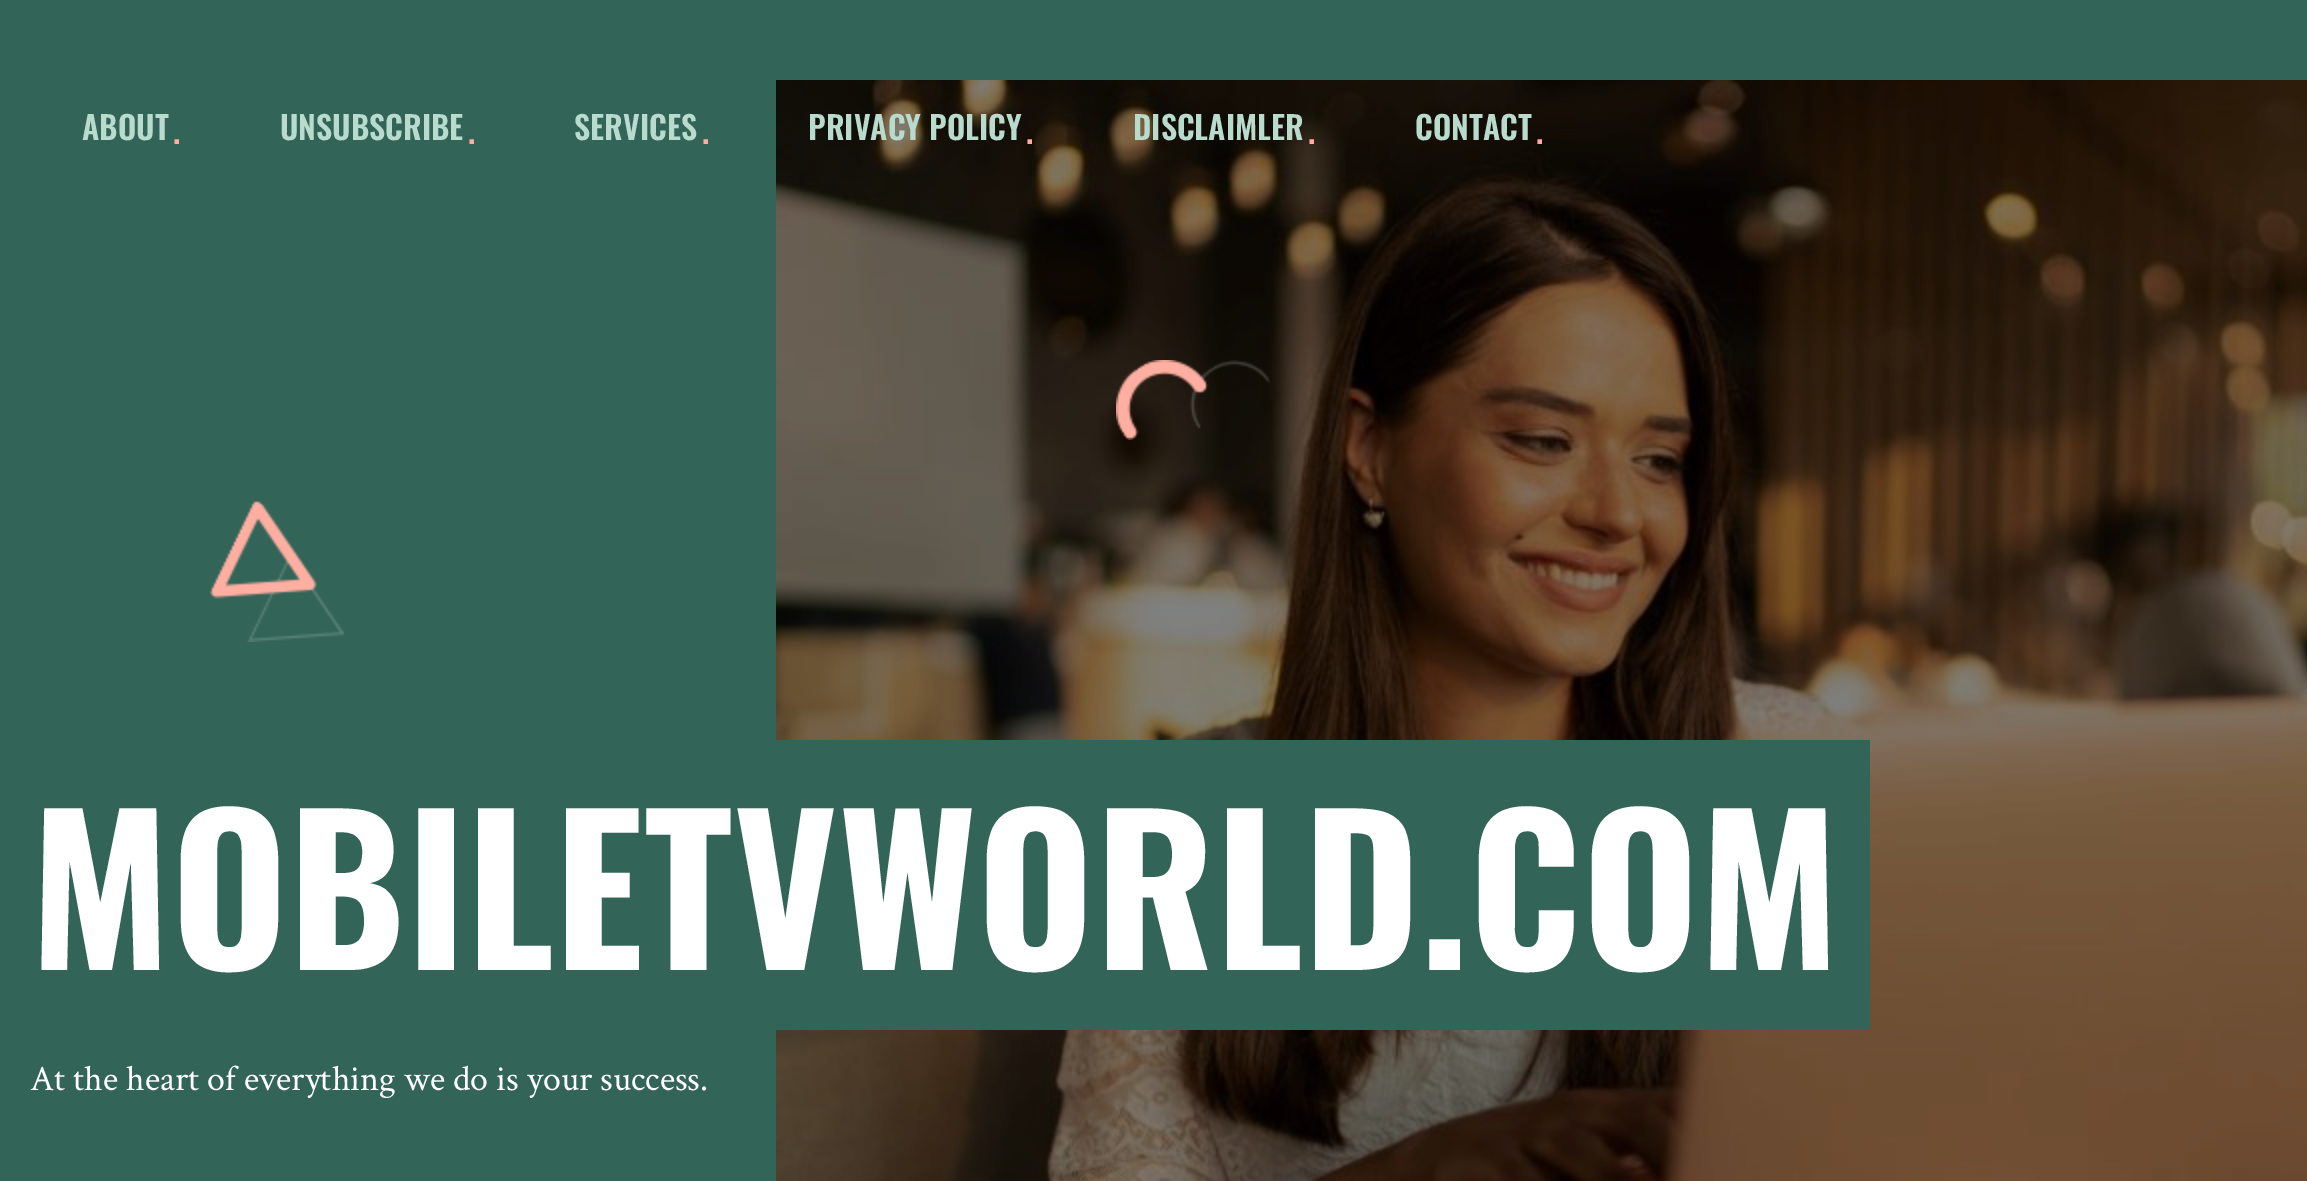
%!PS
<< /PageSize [2307 1181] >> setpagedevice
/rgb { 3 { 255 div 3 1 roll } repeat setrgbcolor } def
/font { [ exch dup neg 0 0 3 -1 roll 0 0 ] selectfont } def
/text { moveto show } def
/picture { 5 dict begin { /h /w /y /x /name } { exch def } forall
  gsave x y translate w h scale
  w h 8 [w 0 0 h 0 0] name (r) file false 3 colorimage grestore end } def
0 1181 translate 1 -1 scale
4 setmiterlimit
50 100 88 rgb
0 0 2307 1181 rectfill
(img_01.rgb) 776 80 1531 1101 picture
(img_02.rgb) 1116 360 154 80 picture
(img_03.rgb) 210 501 134 141 picture
776 740 1094 290 rectfill
/Oswald-SemiBold 32 font
184 219 206 rgb
(ABOUT) 82 140 text
255 174 161 rgb
(.) 173 144 text
184 219 206 rgb
(UNSUBSCRIBE) 280 140 text
255 174 161 rgb
(.) 468 144 text
184 219 206 rgb
(SERVICES) 574 140 text
255 174 161 rgb
(.) 702 144 text
184 219 206 rgb
(PRIVACY POLICY) 808 140 text
255 174 161 rgb
(.) 1026 144 text
184 219 206 rgb
(DISCLAIMLER) 1133 140 text
255 174 161 rgb
(.) 1308 144 text
184 219 206 rgb
(CONTACT) 1415 140 text
255 174 161 rgb
(.) 1536 144 text
/Oswald-Bold 200 font
255 255 255 rgb
(MOBILETVWORLD.COM) 30 970 text
/CrimsonText-Regular 36 font
(At the heart of everything we do is your success.) 30 1090 text
showpage
